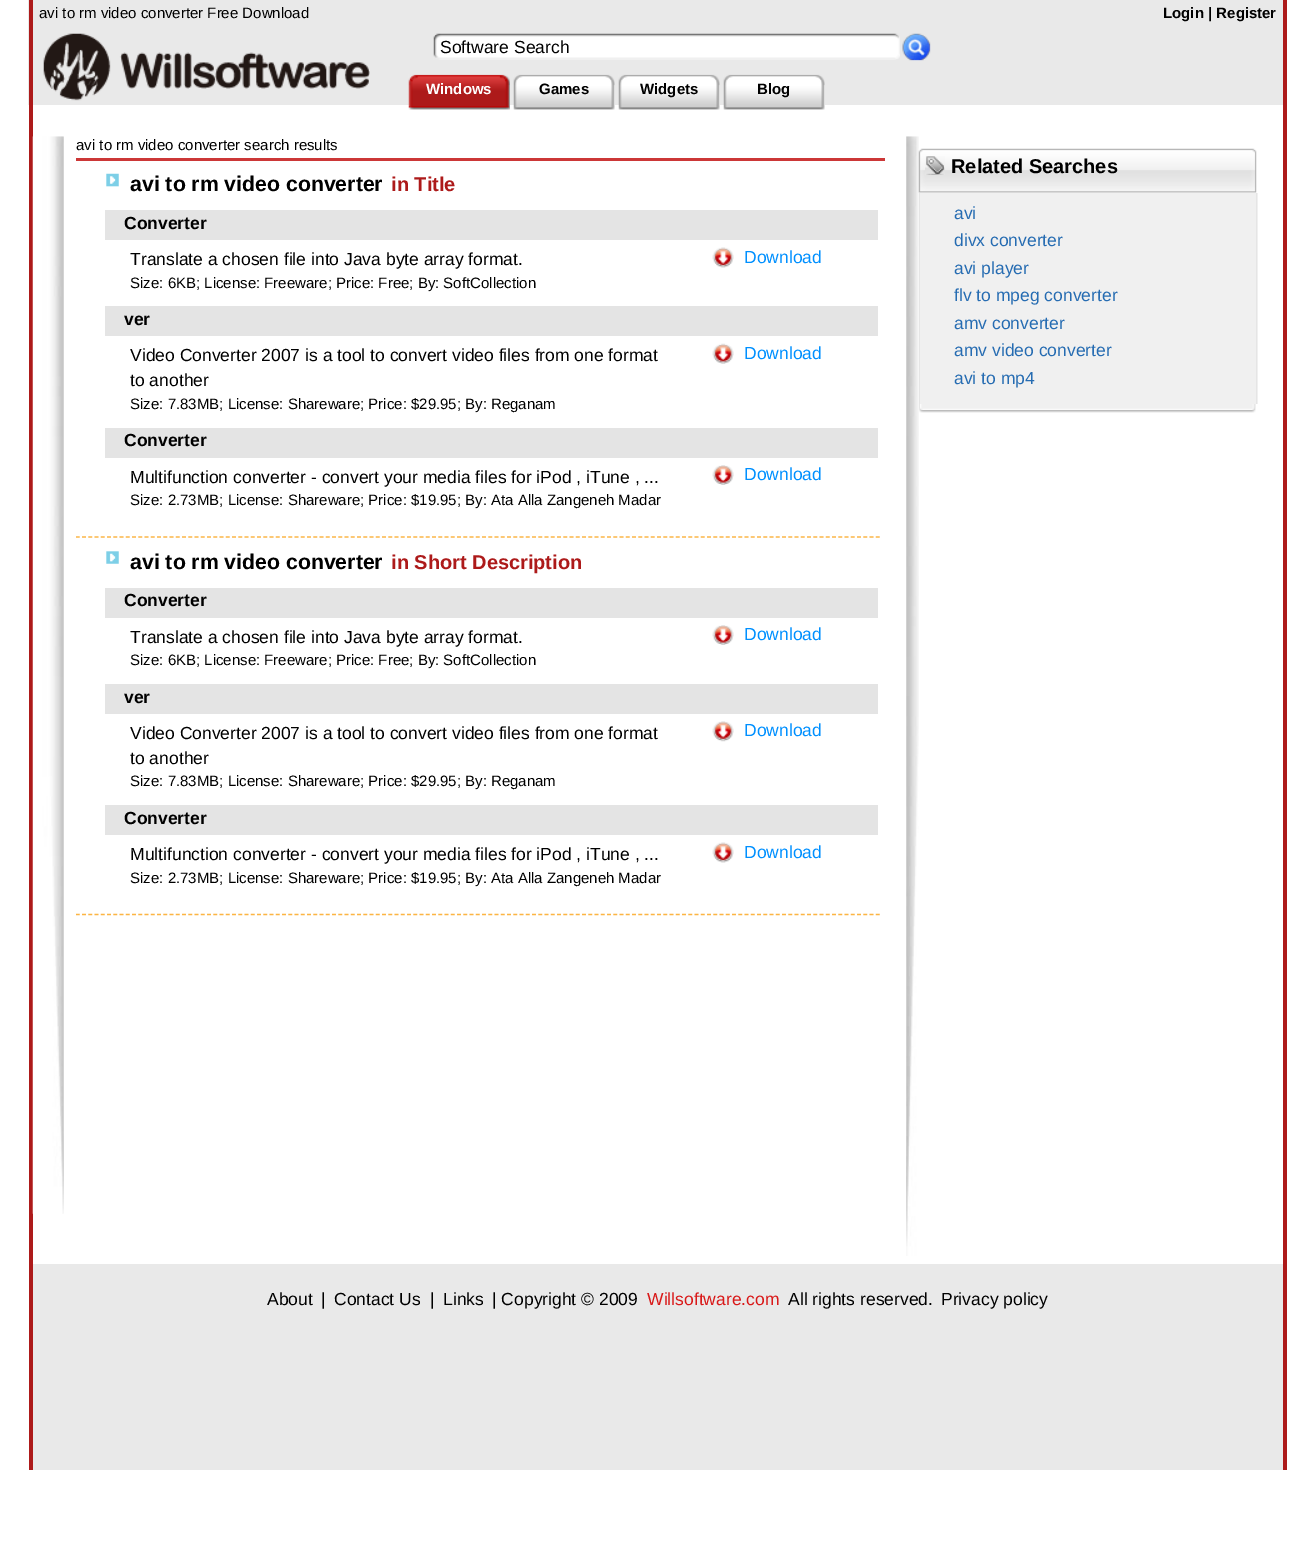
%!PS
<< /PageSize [1314 1561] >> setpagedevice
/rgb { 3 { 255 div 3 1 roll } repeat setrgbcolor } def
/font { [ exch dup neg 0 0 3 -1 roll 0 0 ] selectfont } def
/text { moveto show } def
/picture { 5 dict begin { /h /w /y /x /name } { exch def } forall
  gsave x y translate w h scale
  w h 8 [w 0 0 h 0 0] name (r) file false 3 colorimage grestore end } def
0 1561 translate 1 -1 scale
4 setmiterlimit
255 255 255 rgb
0 0 1314 1561 rectfill
233 233 233 rgb
28 0 1255 105 rectfill
173 26 26 rgb
1283 0 4 1470 rectfill
29 0 4 1470 rectfill
(img_01.rgb) 43 33 327 68 picture
(img_02.rgb) 433 33 467 27 picture
(img_03.rgb) 902 33 29 28 picture
(img_04.rgb) 408 74 102 36 picture
(img_05.rgb) 513 74 102 36 picture
(img_05.rgb) 618 74 102 36 picture
(img_06.rgb) 723 74 102 36 picture
(img_07.rgb) 32 136 32 1078 picture
204 55 55 rgb
76 158 809 3 rectfill
252 181 68 rgb
1.2 setlinewidth
[3.75 2.5] 0 setdash
76 537 moveto 804 0 rlineto stroke
(img_08.rgb) 106 173 13 14 picture
228 228 228 rgb
105 210 773 30 rectfill
(img_09.rgb) 712 247 22 21 picture
105 306 773 30 rectfill
(img_10.rgb) 712 343 22 21 picture
105 428 773 30 rectfill
(img_11.rgb) 712 465 22 20 picture
252 181 68 rgb
76 914.5 moveto 804 0 rlineto stroke
(img_12.rgb) 106 551 13 13 picture
228 228 228 rgb
105 588 773 30 rectfill
(img_11.rgb) 712 625 22 20 picture
105 684 773 30 rectfill
(img_13.rgb) 712 721 22 21 picture
105 805 773 30 rectfill
(img_09.rgb) 712 842 22 21 picture
(img_14.rgb) 906 136 13 1120 picture
(img_15.rgb) 918 148 339 45 picture
(img_16.rgb) 925 156 20 19 picture
240 240 240 rgb
920 193 338 211 rectfill
229 229 229 rgb
1256 193 1 211 rectfill
919 193 1 211 rectfill
(img_17.rgb) 919 404 337 9 picture
233 233 233 rgb
33 1264 1250 206 rectfill
/LiberationSans-Regular 15 font
0 0 0 rgb
(avi to rm video converter Free Download) 39 18 text
/LiberationSans-Bold 15 font
(Login | Register) 1163 18 text
/LiberationSans-Regular 17.5 font
(Software Search) 440 53 text
/LiberationSans-Bold 15 font
255 255 255 rgb
(Windows) 426 94 text
0 0 0 rgb
(Games) 539 94 text
(Widgets) 640 94 text
(Blog) 757 94 text
/LiberationSans-Regular 15 font
(avi to rm video converter search results) 76 150 text
/LiberationSans-Bold 21.25 font
(avi to rm video converter) 130 191 text
/LiberationSans-Bold 20 font
173 26 26 rgb
(in Title) 391 191 text
/LiberationSans-Bold 17.5 font
0 0 0 rgb
(Converter) 124 229 text
/LiberationSans-Regular 17.5 font
(Translate a chosen file into Java byte array format.) 130 265 text
/LiberationSans-Regular 15 font
(Size: 6KB; License: Freeware; Price: Free; By: SoftCollection) 130 288 text
/LiberationSans-Regular 17.5 font
0 144 255 rgb
(Download) 744 263 text
/LiberationSans-Bold 17.5 font
0 0 0 rgb
(ver) 124 325 text
/LiberationSans-Regular 17.5 font
(Video Converter 2007 is a tool to convert video files from one format) 130 361 text
(to another) 130 386 text
/LiberationSans-Regular 15 font
(Size: 7.83MB; License: Shareware; Price: $29.95; By: Reganam) 130 409 text
/LiberationSans-Regular 17.5 font
0 144 255 rgb
(Download) 744 359 text
/LiberationSans-Bold 17.5 font
0 0 0 rgb
(Converter) 124 446 text
/LiberationSans-Regular 17.5 font
(Multifunction converter - convert your media files for iPod , iTune , ...) 130 483 text
/LiberationSans-Regular 15 font
(Size: 2.73MB; License: Shareware; Price: $19.95; By: Ata Alla Zangeneh Madar) 130 505 text
/LiberationSans-Regular 17.5 font
0 144 255 rgb
(Download) 744 480 text
/LiberationSans-Bold 21.25 font
0 0 0 rgb
(avi to rm video converter) 130 569 text
/LiberationSans-Bold 20 font
173 26 26 rgb
(in Short Description) 391 569 text
/LiberationSans-Bold 17.5 font
0 0 0 rgb
(Converter) 124 606 text
/LiberationSans-Regular 17.5 font
(Translate a chosen file into Java byte array format.) 130 643 text
/LiberationSans-Regular 15 font
(Size: 6KB; License: Freeware; Price: Free; By: SoftCollection) 130 665 text
/LiberationSans-Regular 17.5 font
0 144 255 rgb
(Download) 744 640 text
/LiberationSans-Bold 17.5 font
0 0 0 rgb
(ver) 124 703 text
/LiberationSans-Regular 17.5 font
(Video Converter 2007 is a tool to convert video files from one format) 130 739 text
(to another) 130 764 text
/LiberationSans-Regular 15 font
(Size: 7.83MB; License: Shareware; Price: $29.95; By: Reganam) 130 786 text
/LiberationSans-Regular 17.5 font
0 144 255 rgb
(Download) 744 736 text
/LiberationSans-Bold 17.5 font
0 0 0 rgb
(Converter) 124 824 text
/LiberationSans-Regular 17.5 font
(Multifunction converter - convert your media files for iPod , iTune , ...) 130 860 text
/LiberationSans-Regular 15 font
(Size: 2.73MB; License: Shareware; Price: $19.95; By: Ata Alla Zangeneh Madar) 130 883 text
/LiberationSans-Regular 17.5 font
0 144 255 rgb
(Download) 744 858 text
/LiberationSans-Bold 20 font
0 0 0 rgb
(Related Searches) 951 173 text
/LiberationSans-Regular 17.5 font
38 108 178 rgb
(avi) 954 219 text
(divx converter) 954 246 text
(avi player) 954 274 text
(flv to mpeg converter) 954 301 text
(amv converter) 954 329 text
(amv video converter) 954 356 text
(avi to mp4) 954 384 text
0 0 0 rgb
(About) 267 1305 text
(|) 321 1305 text
(Contact Us) 334 1305 text
(|) 430 1305 text
(Links) 443 1305 text
(| Copyright © 2009) 492 1305 text
217 25 25 rgb
(Willsoftware.com) 647 1305 text
0 0 0 rgb
(All rights reserved.) 788 1305 text
(Privacy policy) 941 1305 text
showpage
